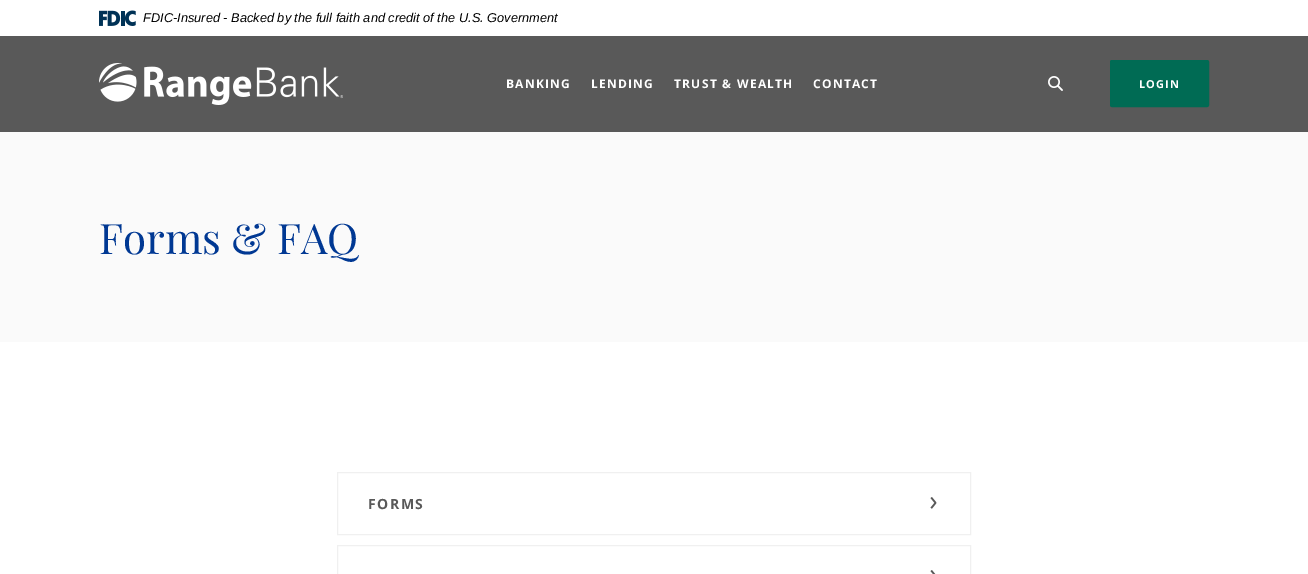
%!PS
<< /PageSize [1308 574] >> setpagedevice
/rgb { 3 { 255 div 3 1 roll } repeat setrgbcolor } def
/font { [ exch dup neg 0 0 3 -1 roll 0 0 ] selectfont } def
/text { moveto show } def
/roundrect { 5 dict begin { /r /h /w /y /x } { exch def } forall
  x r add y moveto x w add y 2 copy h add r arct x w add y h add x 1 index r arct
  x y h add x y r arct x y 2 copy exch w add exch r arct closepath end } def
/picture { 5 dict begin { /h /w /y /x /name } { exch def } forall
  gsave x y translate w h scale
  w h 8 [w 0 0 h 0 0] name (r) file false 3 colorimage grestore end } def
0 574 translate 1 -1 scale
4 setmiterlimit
255 255 255 rgb
0 0 1308 574 rectfill
89 89 89 rgb
0 36 1308 96 rectfill
(img_01.rgb) 99 10 37 16 picture
(img_02.rgb) 99 63 244 42 picture
(img_03.rgb) 1048 76 15 15 picture
0 107 84 rgb
1110.5 60.5 98 46 1.5 roundrect gsave fill grestore
stroke
250 250 250 rgb
0 132 1308 210 rectfill
240 240 240 rgb
337.5 472.5 633 62 rectstroke
(img_04.rgb) 930 497 7 12 picture
337.5 545.5 633 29 rectstroke
(img_05.rgb) 930 570 6 4 picture
/LiberationSans-Italic 12.8 font
0 0 0 rgb
(FDIC-Insured - Backed by the full faith and credit of the U.S. Government) 143 22 text
/OpenSans-Bold 12 font
255 255 255 rgb
506 88 moveto 1.25 0 (BANKING) ashow
591 88 moveto 1.25 0 (LENDING) ashow
674 88 moveto 1.25 0 (TRUST & WEALTH) ashow
813 88 moveto 1.25 0 (CONTACT) ashow
/OpenSans-Bold 11 font
1139 88 moveto 1 0 (LOGIN) ashow
/PlayfairDisplay-Regular 42 font
0 56 147 rgb
(Forms & FAQ) 99 254 text
/OpenSans-Bold 14 font
89 89 89 rgb
368 509 moveto 1.5 0 (FORMS) ashow
showpage
